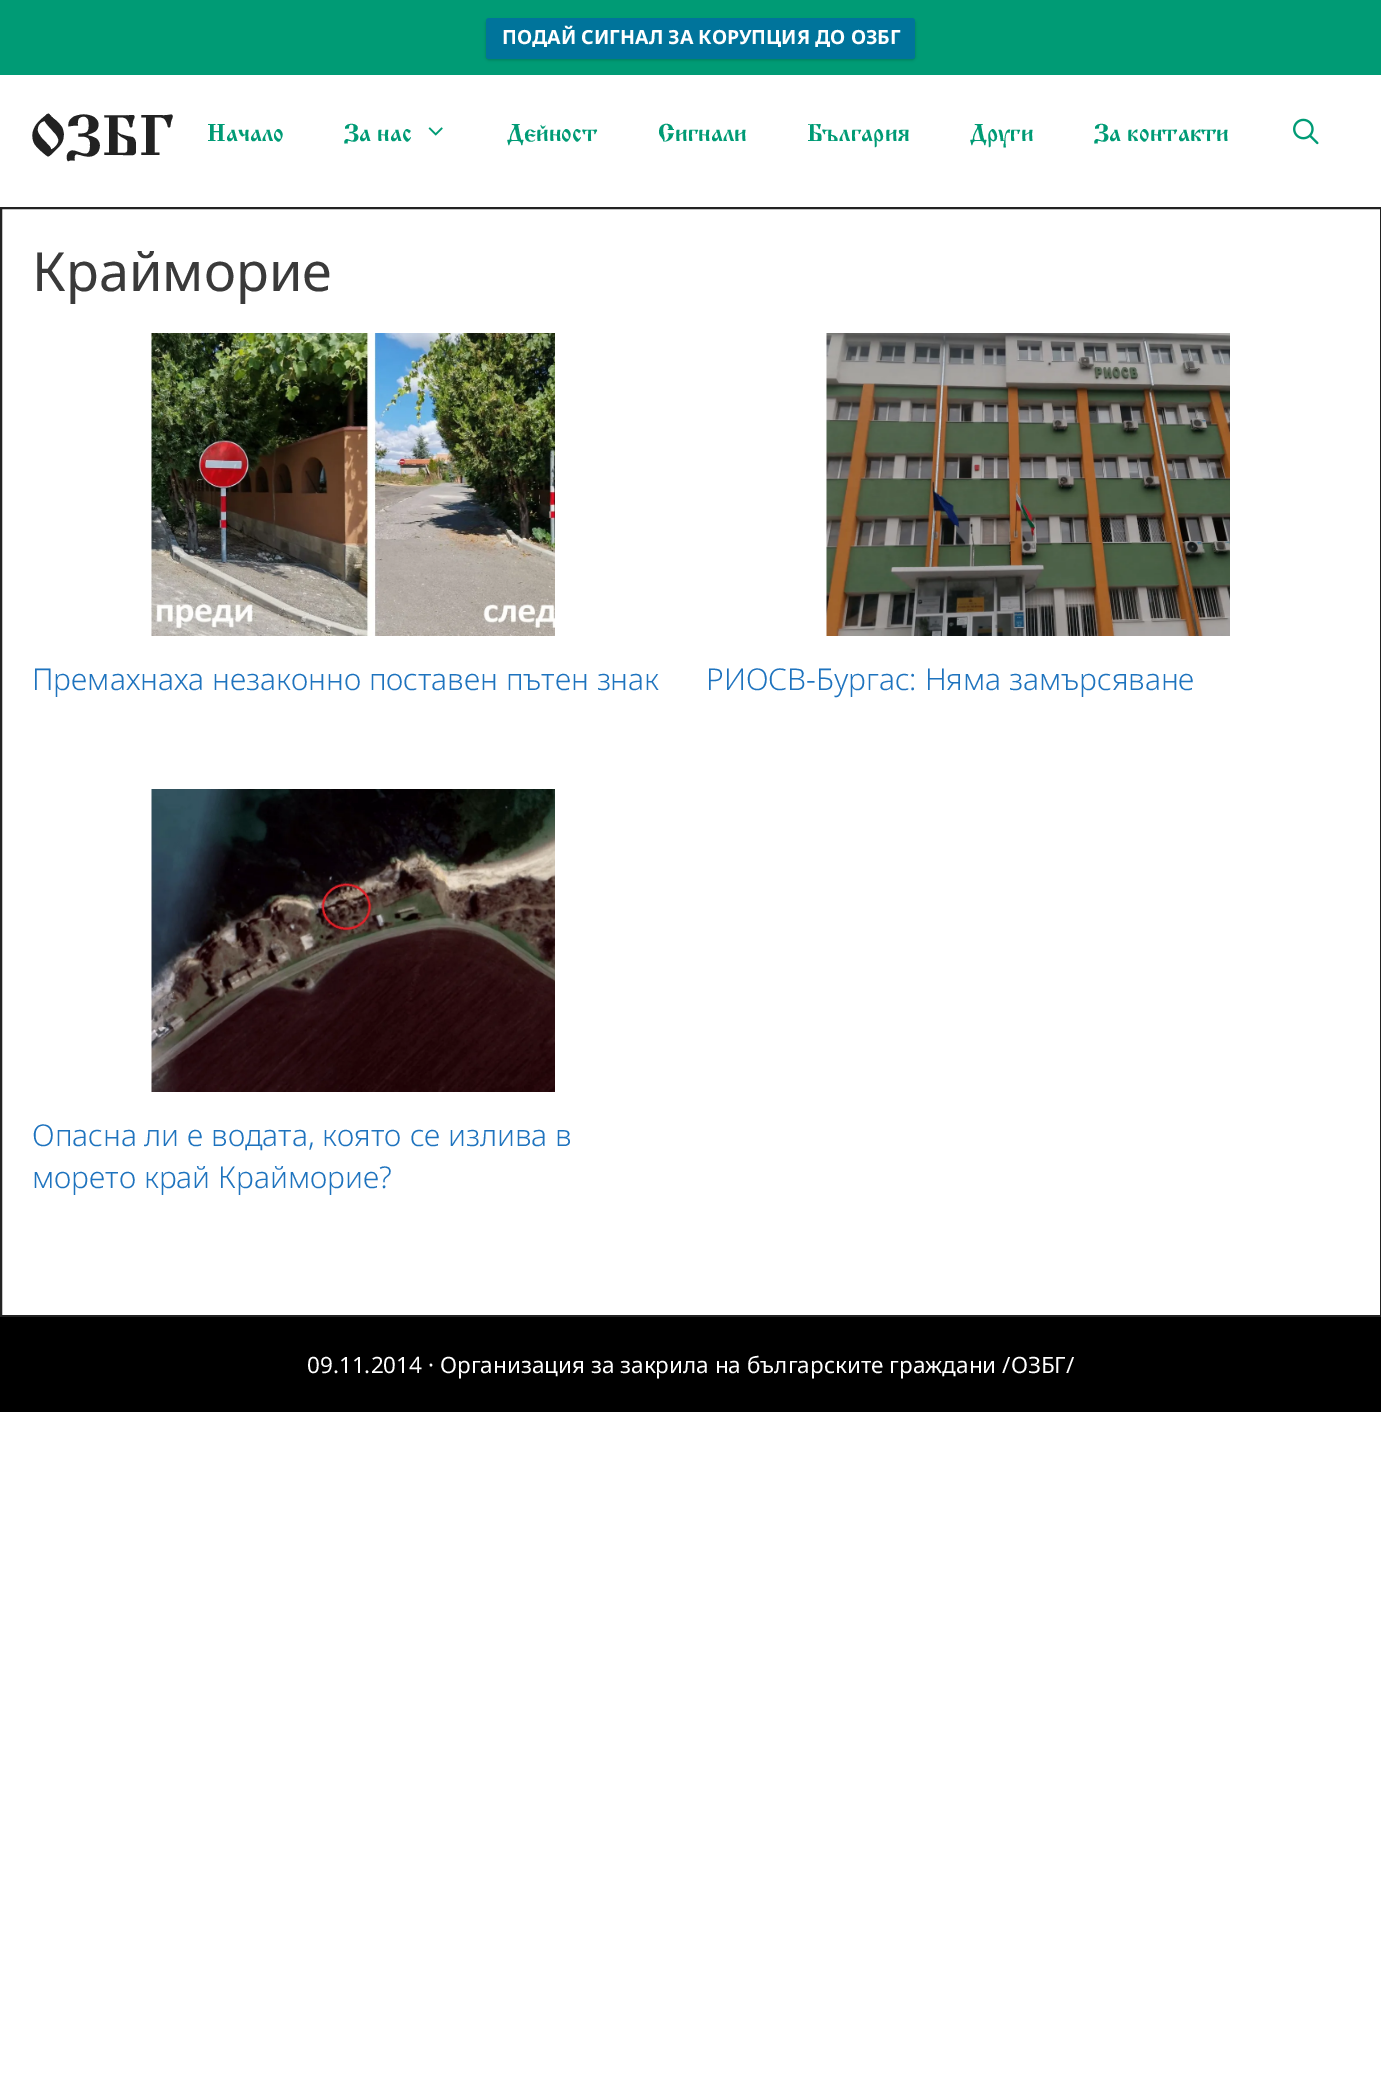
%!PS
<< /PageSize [1381 2074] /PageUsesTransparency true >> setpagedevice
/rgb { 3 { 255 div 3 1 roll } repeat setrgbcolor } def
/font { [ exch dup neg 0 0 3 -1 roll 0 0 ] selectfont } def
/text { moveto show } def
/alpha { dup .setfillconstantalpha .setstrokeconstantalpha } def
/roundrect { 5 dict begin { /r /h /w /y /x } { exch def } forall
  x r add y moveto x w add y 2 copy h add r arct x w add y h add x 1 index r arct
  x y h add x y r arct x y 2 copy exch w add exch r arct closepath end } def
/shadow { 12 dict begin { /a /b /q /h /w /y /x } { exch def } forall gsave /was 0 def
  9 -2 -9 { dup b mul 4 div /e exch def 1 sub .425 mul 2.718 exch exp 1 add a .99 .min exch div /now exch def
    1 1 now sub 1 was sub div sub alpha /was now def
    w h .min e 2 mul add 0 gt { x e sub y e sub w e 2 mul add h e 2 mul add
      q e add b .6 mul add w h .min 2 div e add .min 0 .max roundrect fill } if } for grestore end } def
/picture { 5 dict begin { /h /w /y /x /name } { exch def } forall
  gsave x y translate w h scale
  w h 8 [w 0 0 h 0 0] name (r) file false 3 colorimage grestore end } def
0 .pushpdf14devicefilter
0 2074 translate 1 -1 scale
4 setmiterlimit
255 255 255 rgb
0 0 1381 2074 rectfill
0 155 117 rgb
0 0 1381 75 rectfill
0 0 0 rgb
486 20 429 40 3 1.5 0.2 shadow
0 116 155 rgb
486 18 429 41 3 roundrect fill
(img_01.rgb) 428 127 15 9 picture
(img_02.rgb) 1293 118 26 27 picture
34 34 34 rgb
2 setlinewidth
1 208 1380 1108 rectstroke
(img_03.rgb) 151 333 404 303 picture
(img_04.rgb) 826 333 404 303 picture
(img_05.rgb) 151 789 404 303 picture
0 0 0 rgb
0 1317 1381 95 rectfill
/NotoSans-Bold 19.5 font
255 255 255 rgb
(ПОДАЙ СИГНАЛ ЗА КОРУПЦИЯ ДО ОЗБГ) 502 44 text
/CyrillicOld-Bold 60 font
34 34 34 rgb
(ОЗБГ) 30 155 text
/CyrillicOld-Bold 25.5 font
0 155 117 rgb
(Начало) 207 141 text
(За нас) 344 141 text
(Дейност) 507 141 text
(Сигнали) 658 141 text
(България) 807 141 text
(Други) 970 141 text
(За контакти) 1094 141 text
/NotoSans-Regular 54 font
58 58 58 rgb
(Крайморие) 32 291 text
/NotoSans-Light 30 font
30 115 190 rgb
(Премахнаха незаконно поставен пътен знак) 32 690 text
(РИОСВ-Бургас: Няма замърсяване) 706 690 text
(Опасна ли е водата, която се излива в) 32 1146 text
(морето край Крайморие?) 32 1188 text
/NotoSans-Regular 22.5 font
255 255 255 rgb
(09.11.2014 · Организация за закрила на българските граждани /ОЗБГ/) 307 1373 text
.poppdf14devicefilter showpage
